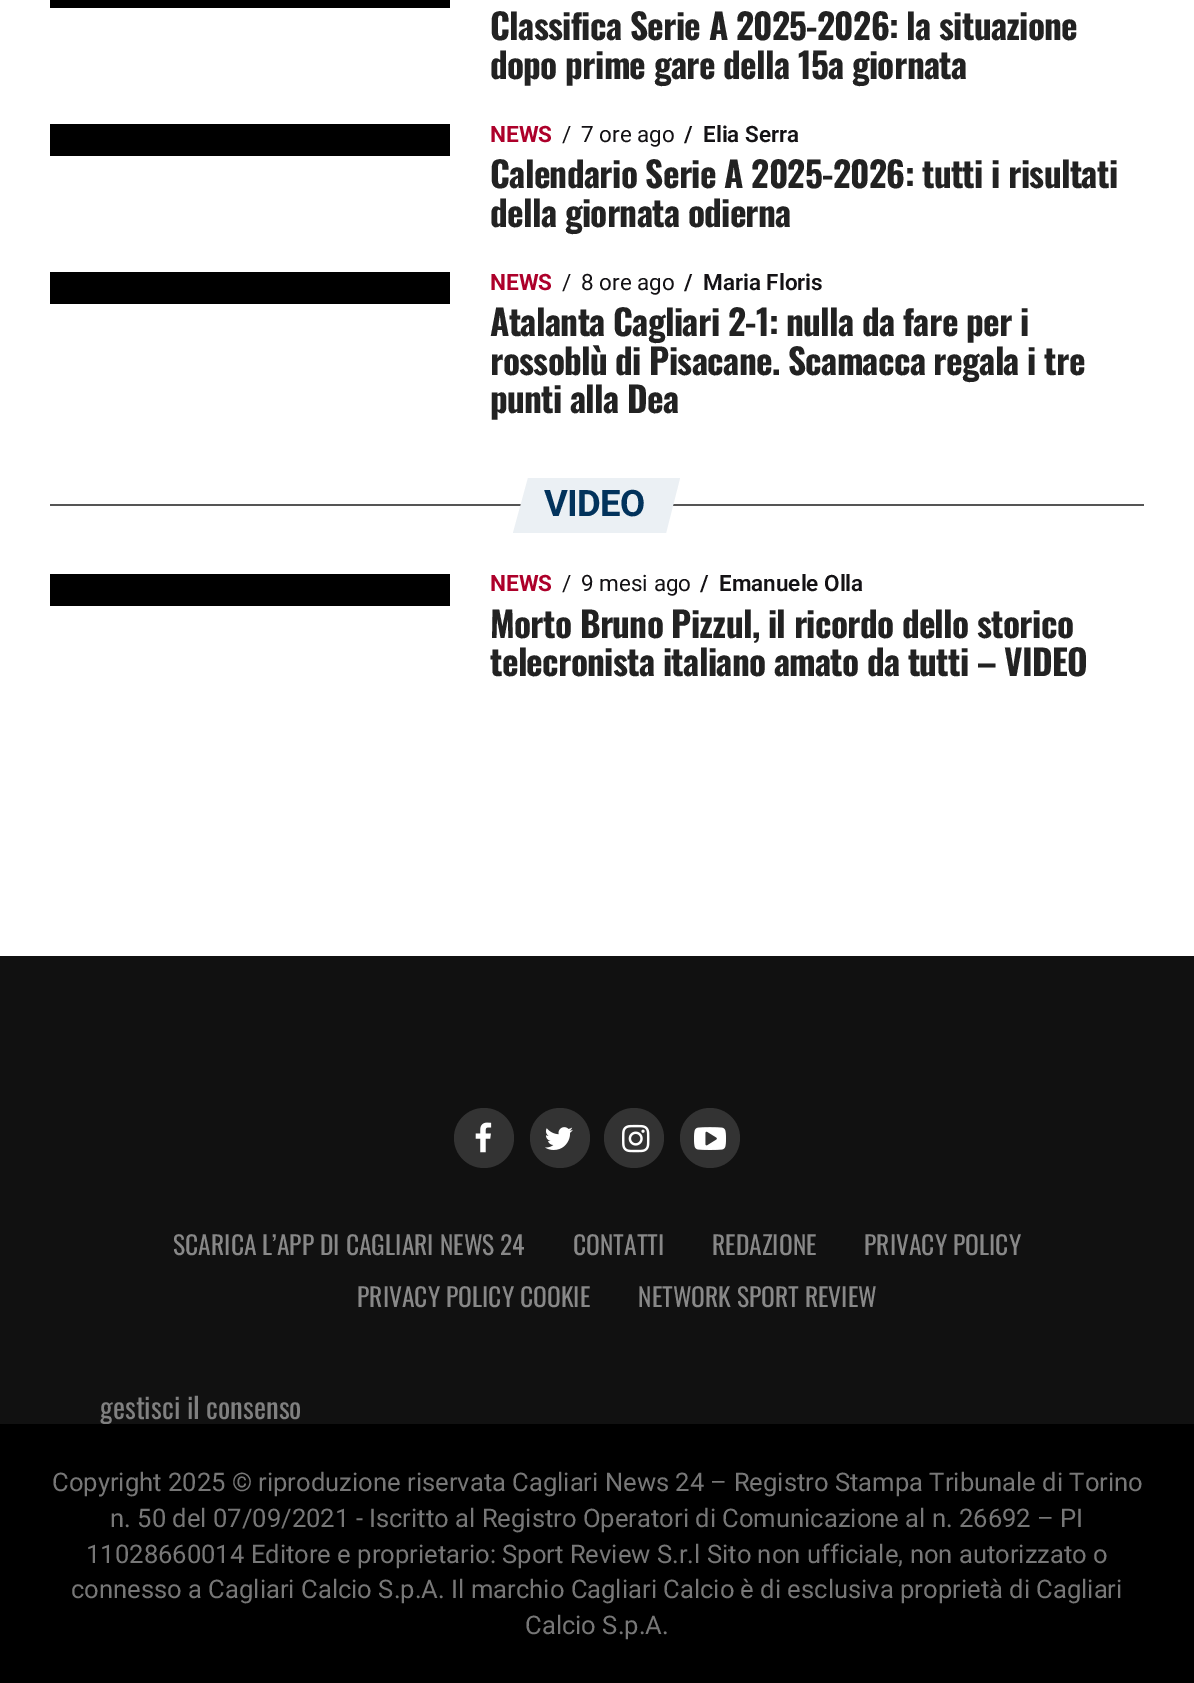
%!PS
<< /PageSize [1194 1683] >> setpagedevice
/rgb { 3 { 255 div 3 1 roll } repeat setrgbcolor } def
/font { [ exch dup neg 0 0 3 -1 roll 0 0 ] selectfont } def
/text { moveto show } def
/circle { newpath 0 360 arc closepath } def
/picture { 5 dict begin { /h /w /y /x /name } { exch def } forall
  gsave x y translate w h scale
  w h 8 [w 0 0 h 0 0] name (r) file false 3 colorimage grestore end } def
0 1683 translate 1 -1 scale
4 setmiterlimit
255 255 255 rgb
0 0 1194 1683 rectfill
0 0 0 rgb
50 0 400 8 rectfill
50 124 400 32 rectfill
50 272 400 32 rectfill
85 85 85 rgb
50 504 1094 2 rectfill
235 240 244 rgb
528 478 moveto 152 0 rlineto -14 55 rlineto -153 0 rlineto closepath fill
0 0 0 rgb
50 574 400 32 rectfill
17 17 17 rgb
0 956 1194 468 rectfill
51 51 51 rgb
484 1138 30 circle fill
(img_01.rgb) 475 1122 17 31 picture
560 1138 30 circle fill
(img_02.rgb) 545 1127 28 23 picture
634 1138 30 circle fill
(img_03.rgb) 622 1124 28 29 picture
710 1138 30 circle fill
(img_04.rgb) 694 1127 32 23 picture
/Oswald-Bold 35.25 font
34 34 34 rgb
490 40 moveto -0.7 0 (Classifica Serie A 2025-2026: la situazione) ashow
490 79 moveto -0.7 0 (dopo prime gare della 15a giornata) ashow
/Roboto-Bold 22.5 font
173 0 42 rgb
(NEWS) 490 142 text
/Roboto-Regular 22.5 font
20 18 21 rgb
(/) 562 142 text
(7 ore ago) 581 142 text
/Roboto-SemiBold 22.5 font
(/) 684 142 text
(Elia Serra) 703 142 text
/Oswald-Bold 35.25 font
34 34 34 rgb
490 188 moveto -0.7 0 (Calendario Serie A 2025-2026: tutti i risultati) ashow
490 227 moveto -0.7 0 (della giornata odierna) ashow
/Roboto-Bold 22.5 font
173 0 42 rgb
(NEWS) 490 290 text
/Roboto-Regular 22.5 font
20 18 21 rgb
(/) 562 290 text
(8 ore ago) 581 290 text
/Roboto-SemiBold 22.5 font
(/) 684 290 text
(Maria Floris) 703 290 text
/Oswald-Bold 35.25 font
34 34 34 rgb
490 336 moveto -0.7 0 (Atalanta Cagliari 2-1: nulla da fare per i) ashow
490 375 moveto -0.7 0 (rossoblù di Pisacane. Scamacca regala i tre) ashow
490 413 moveto -0.7 0 (punti alla Dea) ashow
/Roboto-Bold 36.5 font
2 51 92 rgb
544 516 moveto -0.75 0 (VIDEO) ashow
/Roboto-Bold 22.5 font
173 0 42 rgb
(NEWS) 490 591 text
/Roboto-Regular 22.5 font
20 18 21 rgb
(/) 562 591 text
(9 mesi ago) 581 591 text
/Roboto-SemiBold 22.5 font
(/) 700 591 text
(Emanuele Olla) 719 591 text
/Oswald-Bold 35.25 font
34 34 34 rgb
490 638 moveto -0.7 0 (Morto Bruno Pizzul, il ricordo dello storico) ashow
490 676 moveto -0.7 0 (telecronista italiano amato da tutti – VIDEO) ashow
/Oswald-Regular 25.6 font
136 136 136 rgb
(SCARICA L’APP DI CAGLIARI NEWS 24) 173 1255 text
(CONTATTI) 573 1255 text
(REDAZIONE) 712 1255 text
(PRIVACY POLICY) 864 1255 text
(PRIVACY POLICY COOKIE) 357 1307 text
(NETWORK SPORT REVIEW) 638 1307 text
/Oswald-Regular 28.75 font
128 128 128 rgb
(gestisci il consenso) 100 1419 text
0 0 0 rgb
0 1424 1194 259 rectfill
/Roboto-Regular 25.6 font
119 119 119 rgb
(Copyright 2025 © riproduzione riservata Cagliari News 24 – Registro Stampa Tribunale di Torino) 52 1491 text
(n. 50 del 07/09/2021 - Iscritto al Registro Operatori di Comunicazione al n. 26692 – PI) 110 1527 text
(11028660014 Editore e proprietario: Sport Review S.r.l Sito non ufficiale, non autorizzato o) 86 1563 text
(connesso a Cagliari Calcio S.p.A. Il marchio Cagliari Calcio è di esclusiva proprietà di Cagliari) 71 1598 text
(Calcio S.p.A.) 525 1634 text
showpage
